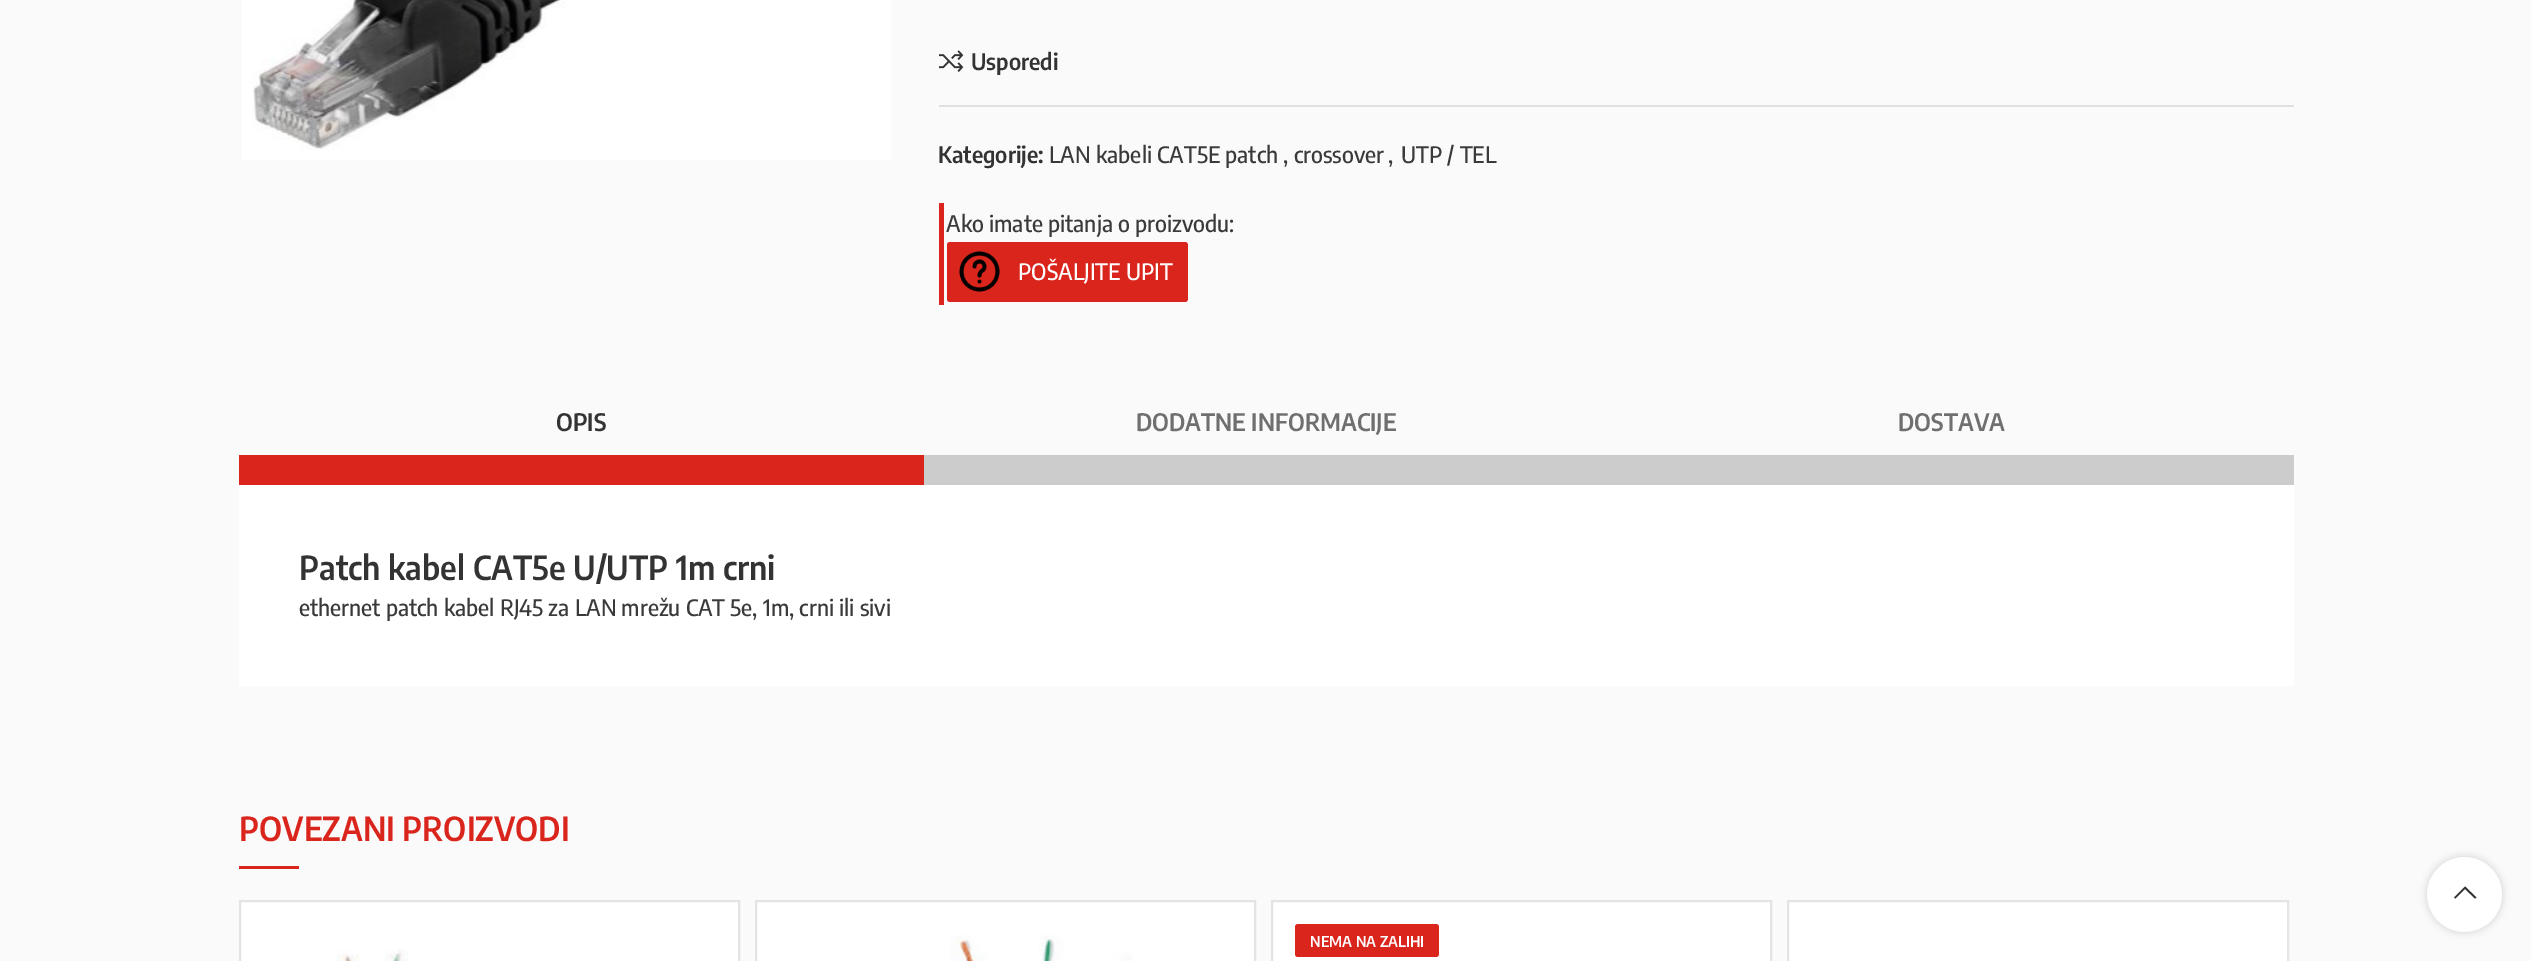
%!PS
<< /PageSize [2531 961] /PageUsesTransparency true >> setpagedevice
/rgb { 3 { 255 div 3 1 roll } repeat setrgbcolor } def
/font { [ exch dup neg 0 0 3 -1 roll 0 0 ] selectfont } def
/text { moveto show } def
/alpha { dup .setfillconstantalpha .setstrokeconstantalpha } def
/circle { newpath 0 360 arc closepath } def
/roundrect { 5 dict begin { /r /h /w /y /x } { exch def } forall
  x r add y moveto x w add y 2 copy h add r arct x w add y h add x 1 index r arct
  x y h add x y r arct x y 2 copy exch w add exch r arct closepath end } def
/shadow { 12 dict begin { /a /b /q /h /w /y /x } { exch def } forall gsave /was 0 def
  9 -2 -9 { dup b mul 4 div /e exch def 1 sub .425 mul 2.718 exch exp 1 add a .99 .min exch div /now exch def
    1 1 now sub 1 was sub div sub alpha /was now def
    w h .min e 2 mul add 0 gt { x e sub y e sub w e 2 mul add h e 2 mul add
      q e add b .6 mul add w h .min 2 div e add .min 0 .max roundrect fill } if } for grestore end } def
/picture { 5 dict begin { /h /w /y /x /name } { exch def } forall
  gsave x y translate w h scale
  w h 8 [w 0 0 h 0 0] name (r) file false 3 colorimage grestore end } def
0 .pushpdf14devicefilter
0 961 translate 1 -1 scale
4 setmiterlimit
250 250 250 rgb
0 0 2531 961 rectfill
(img_01.rgb) 242 0 649 160 picture
(img_02.rgb) 939 50 25 22 picture
224 224 224 rgb
939 105 1355 2 rectfill
218 37 29 rgb
939 203 5 102 rectfill
947 242 241 60 3 roundrect fill
(img_03.rgb) 959 251 41 41 picture
239 455 685 30 rectfill
204 204 204 rgb
924 455 1370 30 rectfill
255 255 255 rgb
239 485 2055 201 rectfill
218 37 29 rgb
239 866 60 3 rectfill
255 255 255 rgb
240 901 moveto 499 0 rlineto 0 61 rlineto -499 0 rlineto closepath gsave fill grestore
228 228 228 rgb
2 setlinewidth
stroke
(img_04.rgb) 336 949 73 12 picture
255 255 255 rgb
756 901 moveto 499 0 rlineto 0 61 rlineto -499 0 rlineto closepath gsave fill grestore
228 228 228 rgb
stroke
(img_05.rgb) 950 935 182 26 picture
255 255 255 rgb
1272 901 moveto 499 0 rlineto 0 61 rlineto -499 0 rlineto closepath gsave fill grestore
228 228 228 rgb
stroke
218 37 29 rgb
1295 924 144 33 3 roundrect fill
255 255 255 rgb
1788 901 moveto 500 0 rlineto 0 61 rlineto -500 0 rlineto closepath gsave fill grestore
228 228 228 rgb
stroke
gsave
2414 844 moveto 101 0 rlineto 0 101 rlineto -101 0 rlineto closepath 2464.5 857 moveto 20.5 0 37.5 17 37.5 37.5 rcurveto 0 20.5 -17 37.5 -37.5 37.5 rcurveto -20.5 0 -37.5 -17 -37.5 -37.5 rcurveto 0 -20.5 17 -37.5 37.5 -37.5 rcurveto closepath eoclip newpath
0 0 0 rgb
2427 857 75 75 37.5 4 0.17 shadow
grestore
0.9 alpha
255 255 255 rgb
2464.5 894.5 37.5 circle fill
1 alpha
51 51 51 rgb
2475 898.5 moveto 1.5 -1 rlineto -11.5 -11 rlineto -11 11 rlineto 1.5 1 rlineto 9.5 -9.5 rlineto closepath fill
/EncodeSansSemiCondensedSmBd-SemiBold 22.5 font
(Usporedi) 971 70 text
(Kategorije:) 938 163 text
/EncodeSansSemiCondensed-Medium 22.5 font
58 58 58 rgb
(LAN kabeli CAT5E patch , crossover) 1049 163 text
(,) 1388 163 text
(UTP / TEL) 1401 163 text
(Ako imate pitanja o proizvodu:) 946 232 text
255 255 255 rgb
(POŠALJITE UPIT) 1018 280 text
/EncodeSansSemiCondensedSmBd-SemiBold 24 font
51 51 51 rgb
(OPIS) 556 431 text
111 111 111 rgb
(DODATNE INFORMACIJE) 1136 431 text
(DOSTAVA) 1898 431 text
/EncodeSansSemiCondensedSmBd-SemiBold 33 font
51 51 51 rgb
(Patch kabel CAT5e U/UTP 1m crni) 299 580 text
/EncodeSansSemiCondensed-Medium 22.5 font
58 58 58 rgb
(ethernet patch kabel RJ45 za LAN mrežu CAT 5e, 1m, crni ili sivi) 299 616 text
/EncodeSansSemiCondensedSmBd-SemiBold 33 font
218 37 29 rgb
(POVEZANI PROIZVODI) 239 841 text
/EncodeSansSemiCondensedSmBd-SemiBold 15 font
255 255 255 rgb
(NEMA NA ZALIHI) 1310 947 text
.poppdf14devicefilter showpage
